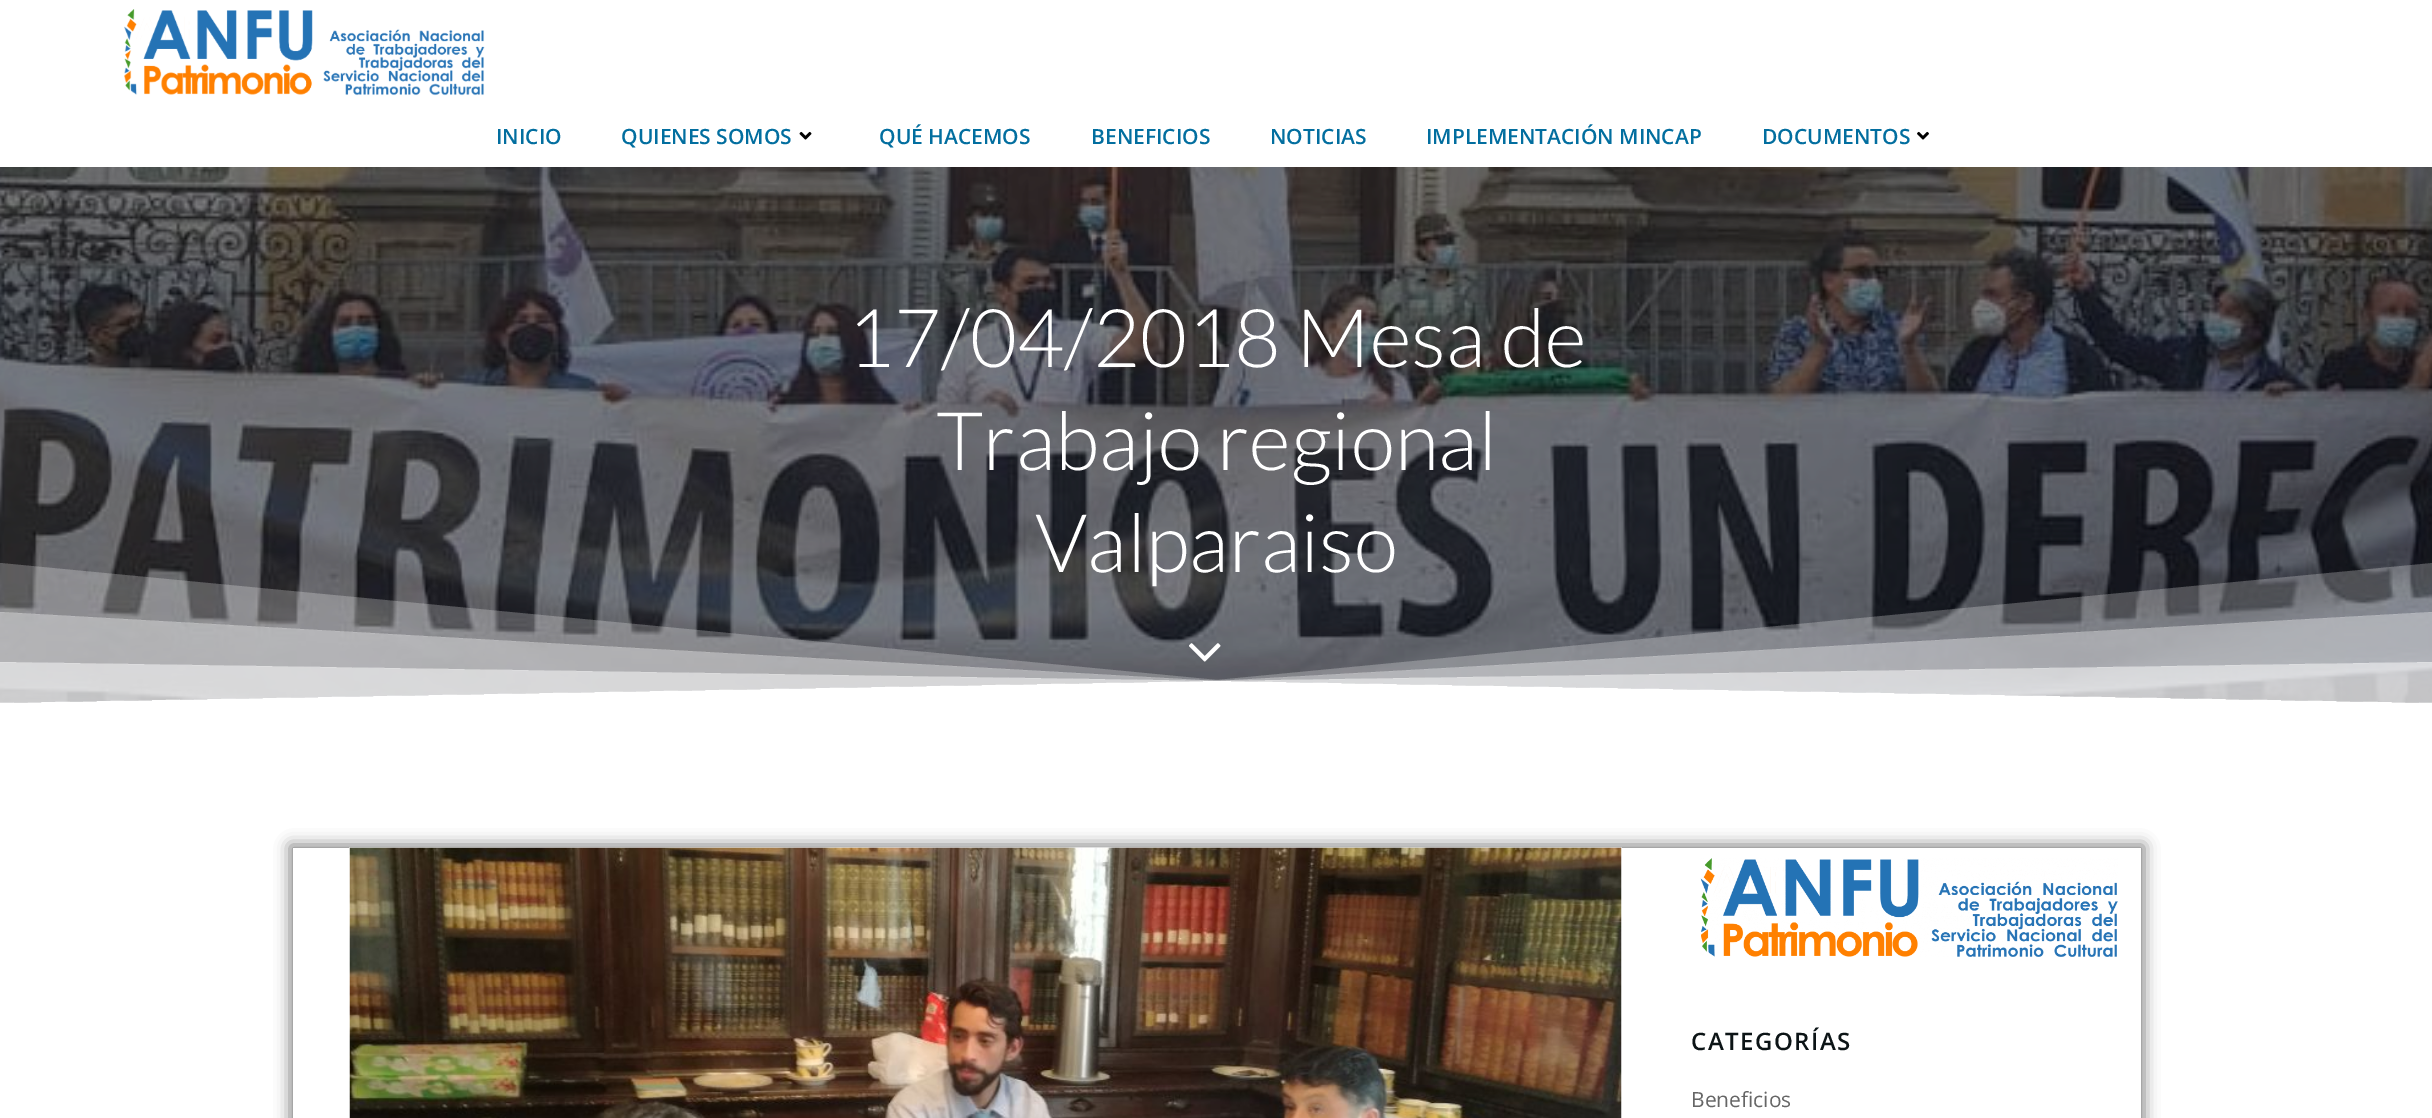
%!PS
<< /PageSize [2432 1118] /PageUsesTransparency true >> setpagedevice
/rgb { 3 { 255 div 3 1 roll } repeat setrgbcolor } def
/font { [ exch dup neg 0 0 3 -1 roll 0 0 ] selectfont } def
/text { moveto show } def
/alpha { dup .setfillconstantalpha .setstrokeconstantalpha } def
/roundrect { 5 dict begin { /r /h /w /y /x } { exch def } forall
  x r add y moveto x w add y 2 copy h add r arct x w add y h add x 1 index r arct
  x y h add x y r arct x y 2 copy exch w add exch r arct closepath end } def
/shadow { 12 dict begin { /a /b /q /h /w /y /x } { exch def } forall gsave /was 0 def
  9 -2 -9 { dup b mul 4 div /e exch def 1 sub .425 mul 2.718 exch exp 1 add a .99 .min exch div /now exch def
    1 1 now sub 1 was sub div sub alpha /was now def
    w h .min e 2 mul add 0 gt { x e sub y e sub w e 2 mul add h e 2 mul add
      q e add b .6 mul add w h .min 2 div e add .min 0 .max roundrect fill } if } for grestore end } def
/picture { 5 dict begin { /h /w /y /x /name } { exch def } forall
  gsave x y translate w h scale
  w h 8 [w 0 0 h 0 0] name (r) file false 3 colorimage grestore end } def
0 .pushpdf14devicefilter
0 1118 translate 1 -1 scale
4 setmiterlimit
255 255 255 rgb
0 0 2432 1118 rectfill
(img_01.rgb) 124 9 361 87 picture
(img_02.rgb) 799 131 13 9 picture
(img_03.rgb) 1917 131 12 9 picture
(img_04.rgb) 0 167 2432 536 picture
0.25 alpha
0 612 moveto 0 -49 rlineto 1217 117 rlineto 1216 -117 rlineto 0 49 rlineto -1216 69 rlineto closepath fill
0.5 alpha
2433 612 moveto 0 50 rlineto -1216 19 rlineto closepath fill
0 662 moveto 0 -50 rlineto 1217 69 rlineto closepath fill
0.75 alpha
0 703 moveto 0 -41 rlineto 1217 19 rlineto closepath fill
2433 662 moveto 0 41 rlineto -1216 -22 rlineto closepath fill
1 alpha
0 713 moveto 0 -10 rlineto 1217 -22 rlineto 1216 22 rlineto 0 10 rlineto closepath fill
(img_05.rgb) 1189 643 32 19 picture
gsave
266 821 moveto 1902 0 rlineto 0 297 rlineto -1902 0 rlineto closepath 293 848 moveto 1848 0 rlineto 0 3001 rlineto -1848 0 rlineto closepath eoclip newpath
0 0 0 rgb
290 845 1854 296 0 7.5 0.5 shadow
grestore
(img_06.rgb) 349 847 1273 271 picture
(img_07.rgb) 1700 858 418 99 picture
/OpenSans-SemiBold 21 font
2 110 159 rgb
(INICIO) 496 144 text
(QUIENES SOMOS) 621 144 text
(QUÉ HACEMOS) 879 144 text
(BENEFICIOS) 1091 144 text
(NOTICIAS) 1270 144 text
(IMPLEMENTACIÓN MINCAP) 1426 144 text
(DOCUMENTOS) 1762 144 text
/Lato-Light 81 font
255 255 255 rgb
(17/04/2018 Mesa de) 847 367 text
(Trabajo regional) 936 470 text
(Valparaiso) 1035 572 text
/OpenSans-SemiBold 24 font
12 20 22 rgb
1691 1050 moveto 1.5 0 (CATEGORÍAS) ashow
/OpenSans-Regular 21 font
102 102 102 rgb
(Beneficios) 1691 1107 text
.poppdf14devicefilter showpage
